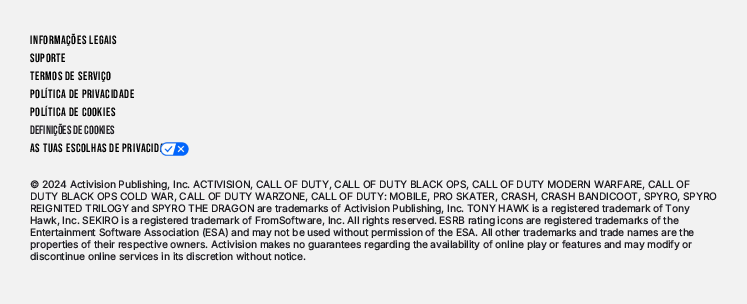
%!PS
<< /PageSize [747 304] >> setpagedevice
/rgb { 3 { 255 div 3 1 roll } repeat setrgbcolor } def
/font { [ exch dup neg 0 0 3 -1 roll 0 0 ] selectfont } def
/text { moveto show } def
/picture { 5 dict begin { /h /w /y /x /name } { exch def } forall
  gsave x y translate w h scale
  w h 8 [w 0 0 h 0 0] name (r) file false 3 colorimage grestore end } def
0 304 translate 1 -1 scale
4 setmiterlimit
242 242 242 rgb
0 0 747 304 rectfill
(img_01.rgb) 160 142 29 14 picture
/BebasNeue-Regular 12 font
0 0 0 rgb
30 44 moveto 0.55 0 (Informações Legais) ashow
30 62 moveto 0.55 0 (Suporte) ashow
30 80 moveto 0.55 0 (Termos de Serviço) ashow
30 98 moveto 0.55 0 (Política de Privacidade) ashow
30 116 moveto 0.55 0 (Política de Cookies) ashow
29 28 33 rgb
(Definições de cookies) 30 134 text
0 0 0 rgb
30 152 moveto 0.55 0 (As tuas escolhas de privacid) ashow
/Inter-Bold 10 font
29 28 33 rgb
(© 2024 Activision Publishing, Inc. ACTIVISION, CALL OF DUTY, CALL OF DUTY BLACK OPS, CALL OF DUTY MODERN WARFARE, CALL OF) 30 188 text
(DUTY BLACK OPS COLD WAR, CALL OF DUTY WARZONE, CALL OF DUTY: MOBILE, PRO SKATER, CRASH, CRASH BANDICOOT, SPYRO, SPYRO) 30 200 text
(REIGNITED TRILOGY and SPYRO THE DRAGON are trademarks of Activision Publishing, Inc. TONY HAWK is a registered trademark of Tony) 30 212 text
(Hawk, Inc. SEKIRO is a registered trademark of FromSoftware, Inc. All rights reserved. ESRB rating icons are registered trademarks of the) 30 224 text
(Entertainment Software Association \(ESA\) and may not be used without permission of the ESA. All other trademarks and trade names are the) 30 236 text
(properties of their respective owners. Activision makes no guarantees regarding the availability of online play or features and may modify or) 30 248 text
(discontinue online services in its discretion without notice.) 30 260 text
showpage
